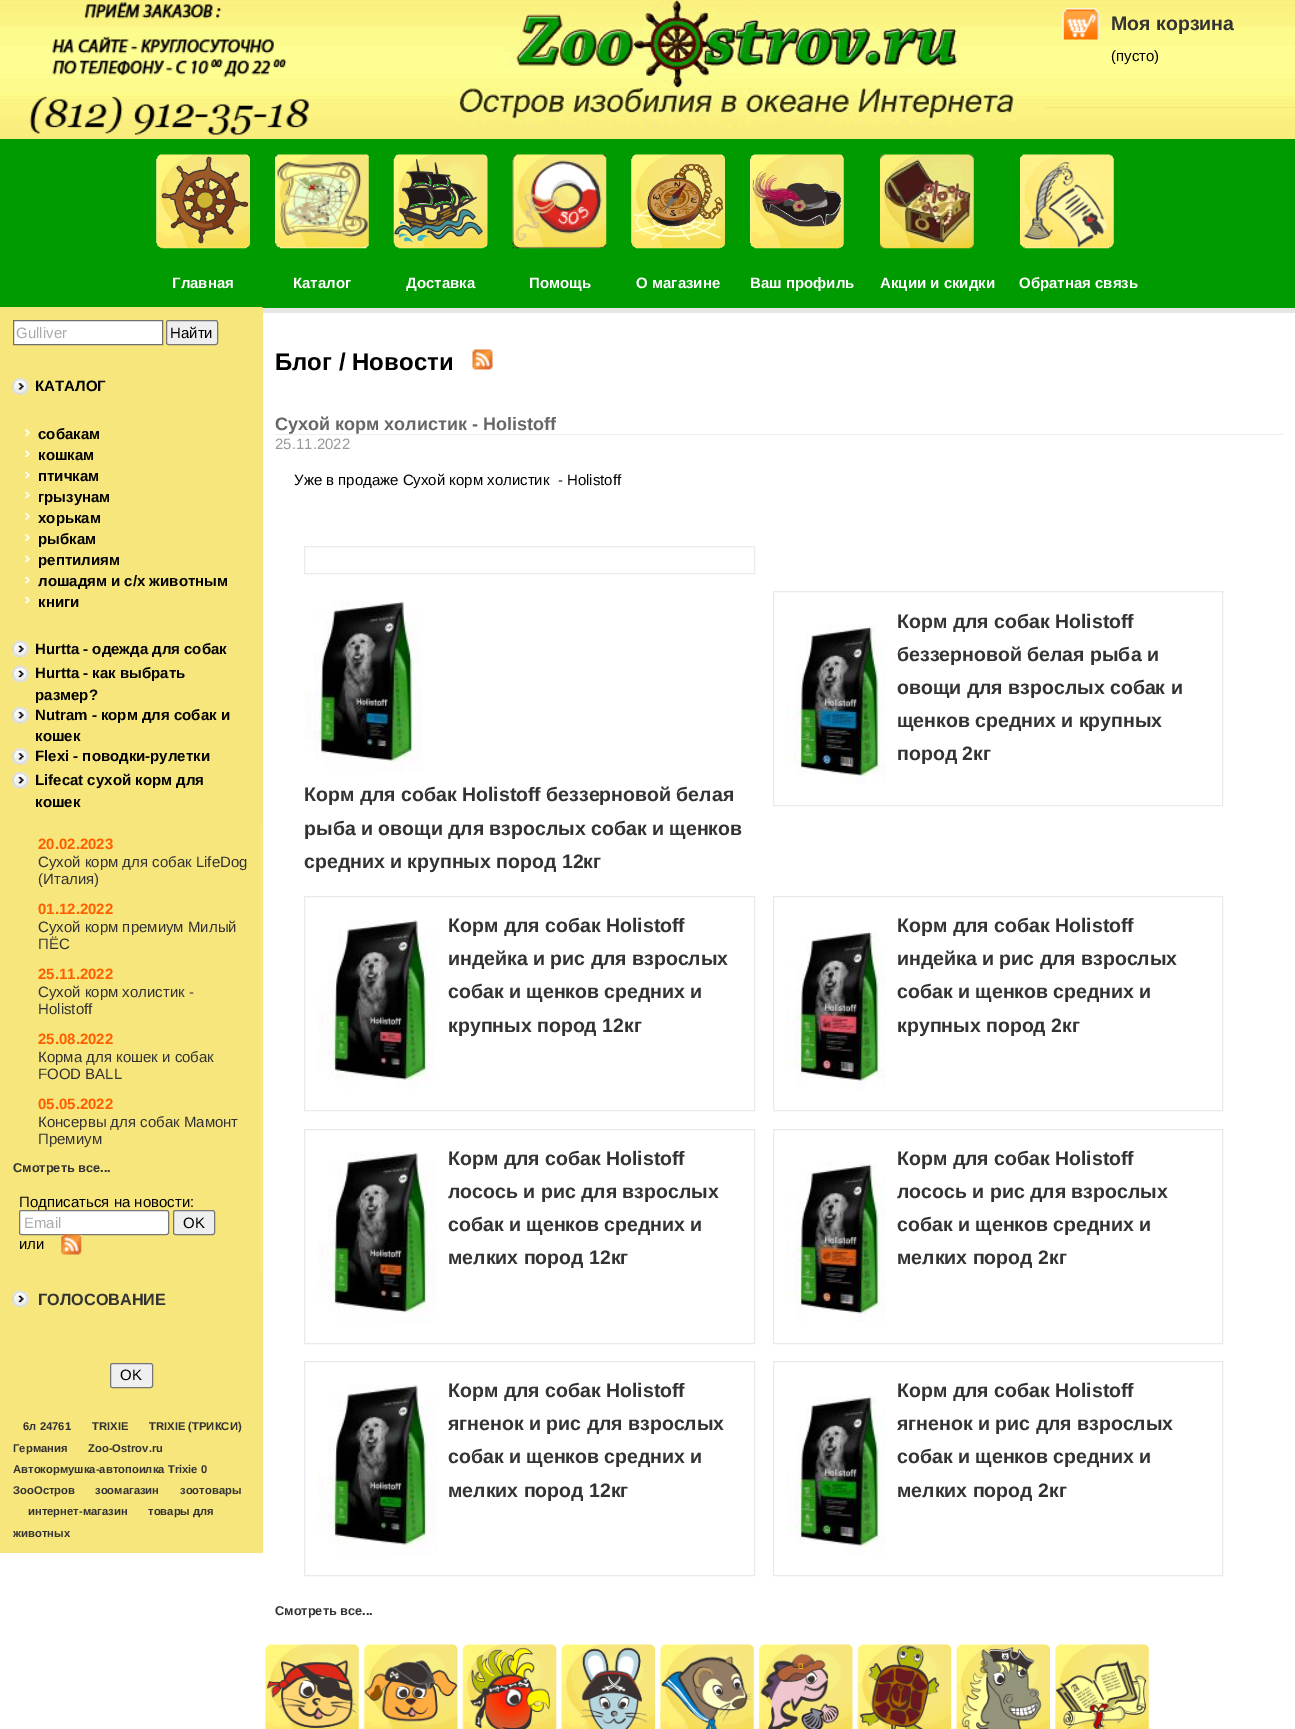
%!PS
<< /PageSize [1295 1729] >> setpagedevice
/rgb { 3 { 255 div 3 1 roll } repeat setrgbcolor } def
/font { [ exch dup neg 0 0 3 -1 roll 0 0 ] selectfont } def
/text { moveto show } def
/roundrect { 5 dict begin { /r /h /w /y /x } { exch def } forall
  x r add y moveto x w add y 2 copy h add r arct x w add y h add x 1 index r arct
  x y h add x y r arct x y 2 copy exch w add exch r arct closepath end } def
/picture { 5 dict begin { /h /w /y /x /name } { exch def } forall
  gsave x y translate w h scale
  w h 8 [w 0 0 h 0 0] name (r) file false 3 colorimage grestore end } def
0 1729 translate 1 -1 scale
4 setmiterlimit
255 255 255 rgb
0 0 1295 1729 rectfill
247 230 123 rgb
0 138 1295 1 rectfill
(img_01.rgb) 0 0 1295 138 picture
(img_02.rgb) 29 0 988 135 picture
1045 107 250 1 rectfill
(img_03.rgb) 1045 0 250 107 picture
(img_04.rgb) 1062 8 39 32 picture
0 155 0 rgb
0 139 1295 169 rectfill
(img_05.rgb) 156 154 94 95 picture
(img_06.rgb) 275 154 94 95 picture
(img_07.rgb) 393 154 95 95 picture
(img_08.rgb) 512 154 95 95 picture
(img_09.rgb) 631 154 94 95 picture
(img_10.rgb) 750 154 94 95 picture
(img_11.rgb) 880 154 94 95 picture
(img_12.rgb) 1020 154 94 95 picture
(img_13.rgb) 0 307 263 1 picture
247 230 123 rgb
0 308 263 966 rectfill
255 255 255 rgb
13.5 320.5 moveto 149 0 rlineto 0 24 rlineto -149 0 rlineto closepath gsave fill grestore
112 112 112 rgb
stroke
239 239 239 rgb
166.5 320.5 51 24 2 roundrect gsave fill grestore
118 118 118 rgb
stroke
(img_14.rgb) 12 378 17 17 picture
(img_15.rgb) 25 429 5 7 picture
(img_16.rgb) 25 450 5 7 picture
(img_17.rgb) 25 472 5 7 picture
(img_17.rgb) 25 492 5 7 picture
(img_18.rgb) 25 513 5 7 picture
(img_15.rgb) 25 534 5 7 picture
(img_16.rgb) 25 555 5 7 picture
(img_17.rgb) 25 577 5 7 picture
(img_17.rgb) 25 597 5 7 picture
(img_19.rgb) 12 640 17 17 picture
(img_19.rgb) 12 665 17 17 picture
(img_20.rgb) 12 707 17 17 picture
(img_14.rgb) 12 748 17 17 picture
(img_20.rgb) 12 772 17 17 picture
230 230 230 rgb
261 823 1 452 rectfill
239 239 239 rgb
173.5 1210.5 41 24 2 roundrect gsave fill grestore
118 118 118 rgb
stroke
255 255 255 rgb
19.5 1210.5 149 24 2 roundrect gsave fill grestore
118 118 118 rgb
stroke
(img_21.rgb) 61 1234 21 21 picture
247 230 123 rgb
0 1274 263 279 rectfill
(img_19.rgb) 12 1290 17 17 picture
239 239 239 rgb
110.5 1363.5 42 24 2 roundrect gsave fill grestore
118 118 118 rgb
stroke
230 230 230 rgb
263 308 1032 5 rectfill
(img_22.rgb) 472 349 21 21 picture
238 238 238 rgb
275 434 1008 1 rectfill
234 234 234 rgb
304.5 546.5 450 27 rectstroke
773.5 591.5 449 214 rectstroke
(img_23.rgb) 786 625 100 160 picture
(img_24.rgb) 303 601 120 171 picture
304.5 896.5 450 214 rectstroke
(img_25.rgb) 317 919 118 171 picture
773.5 896.5 449 214 rectstroke
(img_26.rgb) 786 930 100 160 picture
304.5 1129.5 450 214 rectstroke
(img_27.rgb) 317 1152 120 171 picture
773.5 1129.5 449 214 rectstroke
(img_28.rgb) 786 1162 100 161 picture
304.5 1361.5 450 214 rectstroke
(img_29.rgb) 317 1384 120 171 picture
773.5 1361.5 449 214 rectstroke
(img_30.rgb) 786 1395 100 160 picture
(img_31.rgb) 265 1644 94 85 picture
(img_32.rgb) 363 1644 95 85 picture
(img_33.rgb) 462 1644 95 85 picture
(img_34.rgb) 561 1644 94 85 picture
(img_35.rgb) 660 1644 94 85 picture
(img_36.rgb) 758 1644 95 85 picture
(img_37.rgb) 857 1644 95 85 picture
(img_38.rgb) 956 1644 94 85 picture
(img_39.rgb) 1055 1644 94 85 picture
/LiberationSans-Bold 19.5 font
51 51 51 rgb
(Моя корзина) 1111 30 text
/LiberationSans-Regular 15 font
0 0 0 rgb
(\(пусто\)) 1111 61 text
/LiberationSans-Bold 15 font
255 255 255 rgb
(Главная) 172 288 text
(Каталог) 293 288 text
(Доставка) 406 288 text
(Помощь) 529 288 text
(О магазине) 636 288 text
(Ваш профиль) 750 288 text
(Акции и скидки) 880 288 text
(Обратная связь) 1019 288 text
/LiberationSans-Regular 15 font
170 170 170 rgb
(Gulliver) 16 338 text
0 0 0 rgb
(Найти) 170 338 text
/LiberationSans-Bold 15 font
(КАТАЛОГ) 35 391 text
(собакам) 38 439 text
(кошкам) 38 460 text
(птичкам) 38 481 text
(грызунам) 38 502 text
(хорькам) 38 523 text
(рыбкам) 38 544 text
(рептилиям) 38 565 text
(лошадям и с/х животным) 38 586 text
(книги) 38 607 text
(Hurtta - одежда для собак) 35 654 text
(Hurtta - как выбрать) 35 678 text
(размер?) 35 700 text
(Nutram - корм для собак и) 35 720 text
(кошек) 35 741 text
(Flexi - поводки-рулетки) 35 761 text
(Lifecat сухой корм для) 35 785 text
(кошек) 35 807 text
255 94 0 rgb
(20.02.2023) 38 849 text
/LiberationSans-Regular 15 font
51 51 51 rgb
(Сухой корм для собак LifeDog) 38 867 text
(\(Италия\)) 38 884 text
/LiberationSans-Bold 15 font
255 94 0 rgb
(01.12.2022) 38 914 text
/LiberationSans-Regular 15 font
51 51 51 rgb
(Сухой корм премиум Милый) 38 932 text
(ПЁС) 38 949 text
/LiberationSans-Bold 15 font
255 94 0 rgb
(25.11.2022) 38 979 text
/LiberationSans-Regular 15 font
51 51 51 rgb
(Сухой корм холистик -) 38 997 text
(Holistoff) 38 1014 text
/LiberationSans-Bold 15 font
255 94 0 rgb
(25.08.2022) 38 1044 text
/LiberationSans-Regular 15 font
51 51 51 rgb
(Корма для кошек и собак) 38 1062 text
(FOOD BALL) 38 1079 text
/LiberationSans-Bold 15 font
255 94 0 rgb
(05.05.2022) 38 1109 text
/LiberationSans-Regular 15 font
51 51 51 rgb
(Консервы для собак Мамонт) 38 1127 text
(Премиум) 38 1144 text
/LiberationSans-Bold 12.75 font
(Смотреть все...) 13 1172 text
/LiberationSans-Regular 15 font
0 0 0 rgb
(Подписаться на новости:) 19 1207 text
(OK) 183 1228 text
(или) 19 1249 text
170 170 170 rgb
(Email) 24 1228 text
/LiberationSans-Bold 16.25 font
51 51 51 rgb
(ГОЛОСОВАНИЕ) 38 1305 text
/LiberationSans-Regular 15 font
0 0 0 rgb
(OK) 120 1380 text
/LiberationSans-Bold 11.25 font
51 51 51 rgb
(6л 24761) 23 1430 text
(TRIXIE) 92 1430 text
(TRIXIE \(ТРИКСИ\)) 149 1430 text
(Германия) 13 1452 text
(Zoo-Ostrov.ru) 88 1452 text
(Автокормушка-автопоилка Trixie 0) 13 1473 text
(ЗооОстров) 13 1494 text
(зоомагазин) 95 1494 text
(зоотовары) 180 1494 text
(интернет-магазин) 28 1515 text
(товары для) 148 1515 text
(животных) 13 1537 text
/LiberationSans-Bold 24 font
0 0 0 rgb
(Блог / Новости) 275 370 text
/LiberationSans-Bold 18 font
102 102 102 rgb
(Сухой корм холистик - Holistoff) 275 430 text
/LiberationSans-Regular 15 font
153 153 153 rgb
(25.11.2022) 275 449 text
0 0 0 rgb
(Уже в продаже Сухой корм холистик  - Holistoff) 294 485 text
/LiberationSans-Bold 19.5 font
51 51 51 rgb
(Корм для собак Holistoff) 897 628 text
(беззерновой белая рыба и) 897 661 text
(овощи для взрослых собак и) 897 694 text
(щенков средних и крупных) 897 727 text
(пород 2кг) 897 760 text
(Корм для собак Holistoff беззерновой белая) 304 801 text
(рыба и овощи для взрослых собак и щенков) 304 835 text
(средних и крупных пород 12кг) 304 868 text
(Корм для собак Holistoff) 448 932 text
(индейка и рис для взрослых) 448 965 text
(собак и щенков средних и) 448 998 text
(крупных пород 12кг) 448 1032 text
(Корм для собак Holistoff) 897 932 text
(индейка и рис для взрослых) 897 965 text
(собак и щенков средних и) 897 998 text
(крупных пород 2кг) 897 1032 text
(Корм для собак Holistoff) 448 1165 text
(лосось и рис для взрослых) 448 1198 text
(собак и щенков средних и) 448 1231 text
(мелких пород 12кг) 448 1264 text
(Корм для собак Holistoff) 897 1165 text
(лосось и рис для взрослых) 897 1198 text
(собак и щенков средних и) 897 1231 text
(мелких пород 2кг) 897 1264 text
(Корм для собак Holistoff) 448 1397 text
(ягненок и рис для взрослых) 448 1430 text
(собак и щенков средних и) 448 1463 text
(мелких пород 12кг) 448 1497 text
(Корм для собак Holistoff) 897 1397 text
(ягненок и рис для взрослых) 897 1430 text
(собак и щенков средних и) 897 1463 text
(мелких пород 2кг) 897 1497 text
/LiberationSans-Bold 12.75 font
(Смотреть все...) 275 1615 text
showpage
